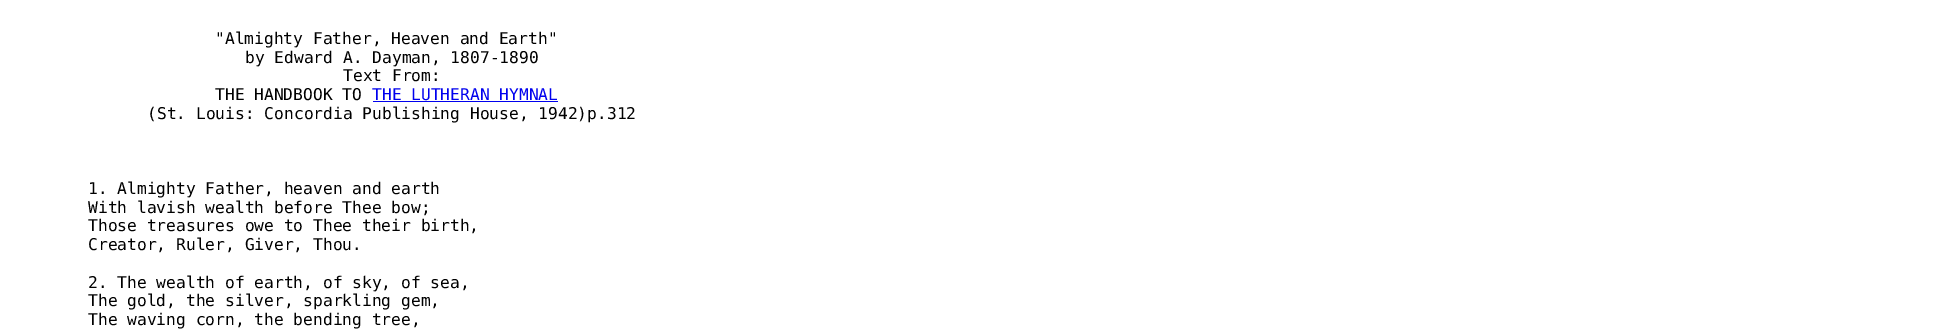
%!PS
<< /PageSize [1949 333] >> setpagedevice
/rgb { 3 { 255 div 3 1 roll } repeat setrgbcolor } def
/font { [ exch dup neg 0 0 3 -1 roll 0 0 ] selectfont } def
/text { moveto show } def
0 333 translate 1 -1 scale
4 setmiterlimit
255 255 255 rgb
0 0 1949 333 rectfill
0 0 238 rgb
373 101 185 1 rectfill
/DejaVuSansMono-Regular 16.25 font
0 0 0 rgb
("Almighty Father, Heaven and Earth") 215 44 text
(by Edward A. Dayman, 1807-1890) 245 63 text
(Text From:) 343 81 text
(THE HANDBOOK TO) 215 100 text
0 0 238 rgb
(THE LUTHERAN HYMNAL) 372 100 text
0 0 0 rgb
(\(St. Louis: Concordia Publishing House, 1942\)p.312) 147 119 text
(1. Almighty Father, heaven and earth) 88 194 text
(With lavish wealth before Thee bow;) 88 213 text
(Those treasures owe to Thee their birth,) 88 231 text
(Creator, Ruler, Giver, Thou.) 88 250 text
(2. The wealth of earth, of sky, of sea,) 88 288 text
(The gold, the silver, sparkling gem,) 88 306 text
(The waving corn, the bending tree,) 88 325 text
showpage
